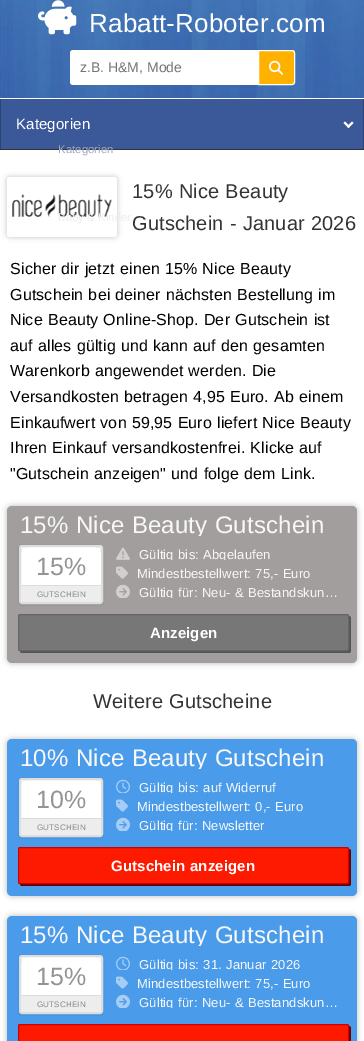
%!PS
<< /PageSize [364 1041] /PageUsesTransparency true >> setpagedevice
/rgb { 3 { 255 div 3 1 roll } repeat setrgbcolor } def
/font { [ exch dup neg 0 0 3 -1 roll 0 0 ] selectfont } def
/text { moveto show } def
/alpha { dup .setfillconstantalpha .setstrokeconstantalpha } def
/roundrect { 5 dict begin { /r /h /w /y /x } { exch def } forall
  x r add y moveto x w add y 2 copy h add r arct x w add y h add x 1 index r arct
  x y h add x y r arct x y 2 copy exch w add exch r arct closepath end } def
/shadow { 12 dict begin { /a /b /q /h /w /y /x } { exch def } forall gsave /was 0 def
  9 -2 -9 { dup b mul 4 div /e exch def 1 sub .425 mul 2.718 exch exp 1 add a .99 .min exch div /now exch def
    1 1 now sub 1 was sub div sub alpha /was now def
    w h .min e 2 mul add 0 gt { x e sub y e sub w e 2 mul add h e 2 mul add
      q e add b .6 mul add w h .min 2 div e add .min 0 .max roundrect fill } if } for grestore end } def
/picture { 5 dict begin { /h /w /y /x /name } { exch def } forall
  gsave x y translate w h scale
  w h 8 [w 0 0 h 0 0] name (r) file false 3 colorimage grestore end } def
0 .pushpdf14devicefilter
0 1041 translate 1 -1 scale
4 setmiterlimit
255 255 255 rgb
0 0 364 1041 rectfill
(img_01.rgb) 0 0 364 98 picture
(img_02.rgb) 38 0 39 35 picture
73 50 moveto 185 0 rlineto 0 35 rlineto -185 0 rlineto -1.5 0 -3 -1.5 -3 -3 rcurveto 0 -29 rlineto 0 -1.5 1.5 -3 3 -3 rcurveto closepath fill
255 177 0 rgb
258.5 50.5 moveto 33.5 0 rlineto 1.5 0 2.5 1 2.5 2.5 rcurveto 0 29 rlineto 0 1.5 -1 2.5 -2.5 2.5 rcurveto -33.5 0 rlineto closepath gsave fill grestore
255 255 255 rgb
stroke
(img_03.rgb) 269 60 14 15 picture
51 51 51 rgb
0 149 364 1 rectfill
59 89 152 rgb
1 99 362 50 rectfill
45 68 115 rgb
363 99 1 50 rectfill
0 99 1 50 rectfill
255 255 255 rgb
352 121.5 moveto 1.5 1.5 rlineto -5 5 rlineto -1.5 -1.5 rlineto closepath fill
345 121.5 moveto 5 5 rlineto -1.5 1.5 rlineto -5 -5 rlineto closepath fill
212 212 212 rgb
6 176 112 62 4 2.5 1 shadow
255 255 255 rgb
7 177 110 60 3 roundrect fill
(img_04.rgb) 12 194 100 23 picture
204 204 204 rgb
6 505 352 159 6 2.5 1 shadow
162 158 158 rgb
7 506 350 157 5 roundrect fill
0 0 0 rgb
19 546 84 59 3 1 0.1 shadow
255 255 255 rgb
20 546 82 57 2 roundrect gsave fill grestore
221 221 221 rgb
2 setlinewidth
stroke
gsave
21 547 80 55 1 roundrect clip newpath
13 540 moveto 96 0 rlineto 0 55 rlineto -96 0 rlineto closepath 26 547 moveto 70 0 rlineto 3 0 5 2 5 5 rcurveto 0 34 rlineto -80 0 rlineto 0 -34 rlineto 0 -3 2 -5 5 -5 rcurveto closepath eoclip newpath
204 204 204 rgb
22 549 78 37 4 2.5 1 shadow
grestore
220 220 220 rgb
21 585 80 1 rectfill
237 237 237 rgb
21 586 moveto 80 0 rlineto 0 15 rlineto 0 0.5 -0.5 1 -1 1 rcurveto -78 0 rlineto -0.5 0 -1 -0.5 -1 -1 rcurveto closepath fill
(img_05.rgb) 116 547 14 13 picture
(img_06.rgb) 116 566 12 13 picture
(img_07.rgb) 116 584 14 14 picture
85 85 85 rgb
20 651 moveto 0 1 1 2 2 2 rcurveto 327 0 rlineto 1 0 2 -1 2 -2 rcurveto 0 -33 rlineto 0 -1 -1 -2 -2 -2 rcurveto 0 33 rlineto 0 1 -1 2 -2 2 rcurveto closepath fill
119 119 119 rgb
18.5 614.5 330 36 1.5 roundrect gsave fill grestore
102 102 102 rgb
1 setlinewidth
stroke
204 204 204 rgb
6 738 352 159 6 2.5 1 shadow
74 155 234 rgb
7 739 350 157 5 roundrect fill
0 0 0 rgb
19 779 84 59 3 1 0.1 shadow
255 255 255 rgb
20 779 82 57 2 roundrect gsave fill grestore
221 221 221 rgb
2 setlinewidth
stroke
gsave
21 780 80 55 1 roundrect clip newpath
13 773 moveto 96 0 rlineto 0 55 rlineto -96 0 rlineto closepath 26 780 moveto 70 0 rlineto 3 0 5 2 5 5 rcurveto 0 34 rlineto -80 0 rlineto 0 -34 rlineto 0 -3 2 -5 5 -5 rcurveto closepath eoclip newpath
204 204 204 rgb
22 782 78 37 4 2.5 1 shadow
grestore
220 220 220 rgb
21 818 80 1 rectfill
237 237 237 rgb
21 819 moveto 80 0 rlineto 0 15 rlineto 0 0.5 -0.5 1 -1 1 rcurveto -78 0 rlineto -0.5 0 -1 -0.5 -1 -1 rcurveto closepath fill
(img_08.rgb) 116 779 14 14 picture
(img_09.rgb) 116 799 12 13 picture
(img_10.rgb) 116 817 14 14 picture
97 3 3 rgb
20 884 moveto 0 1 1 2 2 2 rcurveto 327 0 rlineto 1 0 2 -1 2 -2 rcurveto 0 -33 rlineto 0 -1 -1 -2 -2 -2 rcurveto 0 33 rlineto 0 1 -1 2 -2 2 rcurveto closepath fill
254 26 0 rgb
18.5 847.5 330 36 1.5 roundrect gsave fill grestore
206 1 0 rgb
1 setlinewidth
stroke
204 204 204 rgb
6 915 352 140 6 2.5 1 shadow
74 155 234 rgb
7 916 350 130 5 roundrect fill
0 0 0 rgb
19 956 84 59 3 1 0.1 shadow
255 255 255 rgb
20 956 82 57 2 roundrect gsave fill grestore
221 221 221 rgb
2 setlinewidth
stroke
gsave
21 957 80 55 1 roundrect clip newpath
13 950 moveto 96 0 rlineto 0 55 rlineto -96 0 rlineto closepath 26 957 moveto 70 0 rlineto 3 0 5 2 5 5 rcurveto 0 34 rlineto -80 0 rlineto 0 -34 rlineto 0 -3 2 -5 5 -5 rcurveto closepath eoclip newpath
204 204 204 rgb
22 959 78 37 4 2.5 1 shadow
grestore
220 220 220 rgb
21 995 80 1 rectfill
237 237 237 rgb
21 996 moveto 80 0 rlineto 0 15 rlineto 0 0.5 -0.5 1 -1 1 rcurveto -78 0 rlineto -0.5 0 -1 -0.5 -1 -1 rcurveto closepath fill
(img_08.rgb) 116 956 14 14 picture
(img_09.rgb) 116 976 12 13 picture
(img_10.rgb) 116 994 14 14 picture
97 3 3 rgb
20 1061 moveto 0 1 1 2 2 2 rcurveto 327 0 rlineto 1 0 2 -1 2 -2 rcurveto 0 -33 rlineto 0 -1 -1 -2 -2 -2 rcurveto 0 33 rlineto 0 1 -1 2 -2 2 rcurveto closepath fill
254 26 0 rgb
18.5 1024.5 330 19 1.5 roundrect gsave fill grestore
206 1 0 rgb
1 setlinewidth
stroke
/LiberationSans-Regular 26 font
255 255 255 rgb
89 32 moveto 0.15 0 (Rabatt-Roboter.com) ashow
/LiberationSans-Regular 14 font
117 117 117 rgb
(z.B. H&M, Mode) 80 72 text
/LiberationSans-Regular 15 font
255 255 255 rgb
16 129 moveto 0.15 0 (Kategorien) ashow
/LiberationSans-Regular 11.25 font
157 167 190 rgb
58 153 moveto 0.1 0 (Kategorien) ashow
237 237 237 rgb
58 221 moveto 0.1 0 (Baby & Kinder) ashow
/LiberationSans-Regular 20 font
51 51 51 rgb
132 198 moveto 0.5 0 32 0.15 0 (15% Nice Beauty) awidthshow
132 230 moveto 0.5 0 32 0.15 0 (Gutschein - Januar 2026) awidthshow
/LiberationSans-Regular 16 font
0 0 0 rgb
10 274 moveto 0.5 0 32 0.15 0 (Sicher dir jetzt einen 15% Nice Beauty) awidthshow
10 300 moveto 0.5 0 32 0.15 0 (Gutschein bei deiner nächsten Bestellung im) awidthshow
10 325 moveto 0.5 0 32 0.15 0 (Nice Beauty Online-Shop. Der Gutschein ist) awidthshow
10 351 moveto 0.5 0 32 0.15 0 (auf alles gültig und kann auf den gesamten) awidthshow
10 376 moveto 0.5 0 32 0.15 0 (Warenkorb angewendet werden. Die) awidthshow
10 402 moveto 0.5 0 32 0.15 0 (Versandkosten betragen 4,95 Euro. Ab einem) awidthshow
10 428 moveto 0.5 0 32 0.15 0 (Einkaufwert von 59,95 Euro liefert Nice Beauty) awidthshow
10 453 moveto 0.5 0 32 0.15 0 (Ihren Einkauf versandkostenfrei. Klicke auf) awidthshow
10 479 moveto 0.5 0 32 0.15 0 ("Gutschein anzeigen" und folge dem Link.) awidthshow
gsave
20 514 325 22 rectclip
/LiberationSans-Regular 24 font
248 248 248 rgb
20 533 moveto 0.5 0 32 0.15 0 (15% Nice Beauty Gutschein) awidthshow
grestore
/LiberationSans-Regular 25 font
148 148 148 rgb
36 575 moveto 0.15 0 (15%) ashow
/LiberationSans-Regular 8 font
136 136 136 rgb
37 597 moveto 0.15 0 (GUTSCHEIN) ashow
gsave
116 545 224 15 rectclip
/LiberationSans-Regular 13 font
248 248 248 rgb
139 559 moveto 0.5 0 32 0.15 0 (Gültig bis: Abgelaufen) awidthshow
grestore
/LiberationSans-Regular 13 font
248 248 248 rgb
137 578 moveto 0.5 0 32 0.15 0 (Mindestbestellwert: 75,- Euro) awidthshow
gsave
116 583 224 15 rectclip
139 597 moveto 0.5 0 32 0.15 0 (Gültig für: Neu- & Bestandskun…) awidthshow
grestore
/LiberationSans-Bold 15 font
255 255 255 rgb
150 638 moveto 0.1 0 (Anzeigen) ashow
/LiberationSans-Regular 20 font
51 51 51 rgb
93 708 moveto 0.5 0 32 0.15 0 (Weitere Gutscheine) awidthshow
gsave
20 747 325 22 rectclip
/LiberationSans-Regular 24 font
248 248 248 rgb
20 766 moveto 0.5 0 32 0.15 0 (10% Nice Beauty Gutschein) awidthshow
grestore
/LiberationSans-Regular 25 font
148 148 148 rgb
36 808 moveto 0.15 0 (10%) ashow
/LiberationSans-Regular 8 font
136 136 136 rgb
37 830 moveto 0.15 0 (GUTSCHEIN) ashow
gsave
116 778 224 15 rectclip
/LiberationSans-Regular 13 font
248 248 248 rgb
139 792 moveto 0.5 0 32 0.15 0 (Gültig bis: auf Widerruf) awidthshow
grestore
/LiberationSans-Regular 13 font
248 248 248 rgb
137 811 moveto 0.5 0 32 0.15 0 (Mindestbestellwert: 0,- Euro) awidthshow
gsave
116 816 224 15 rectclip
139 830 moveto 0.5 0 32 0.15 0 (Gültig für: Newsletter) awidthshow
grestore
/LiberationSans-Bold 15 font
255 255 255 rgb
111 871 moveto 0.5 0 32 0.1 0 (Gutschein anzeigen) awidthshow
gsave
20 924 325 22 rectclip
/LiberationSans-Regular 24 font
248 248 248 rgb
20 943 moveto 0.5 0 32 0.15 0 (15% Nice Beauty Gutschein) awidthshow
grestore
/LiberationSans-Regular 25 font
148 148 148 rgb
36 985 moveto 0.15 0 (15%) ashow
/LiberationSans-Regular 8 font
136 136 136 rgb
37 1007 moveto 0.15 0 (GUTSCHEIN) ashow
gsave
116 955 224 15 rectclip
/LiberationSans-Regular 13 font
248 248 248 rgb
139 969 moveto 0.5 0 32 0.15 0 (Gültig bis: 31.) awidthshow
grestore
/LiberationSans-Regular 13 font
248 248 248 rgb
226 969 moveto 0.15 0 (Januar) ashow
271 969 moveto 0.15 0 (2026) ashow
137 988 moveto 0.5 0 32 0.15 0 (Mindestbestellwert: 75,- Euro) awidthshow
gsave
116 993 224 15 rectclip
139 1007 moveto 0.5 0 32 0.15 0 (Gültig für: Neu- & Bestandskun…) awidthshow
grestore
.poppdf14devicefilter showpage
